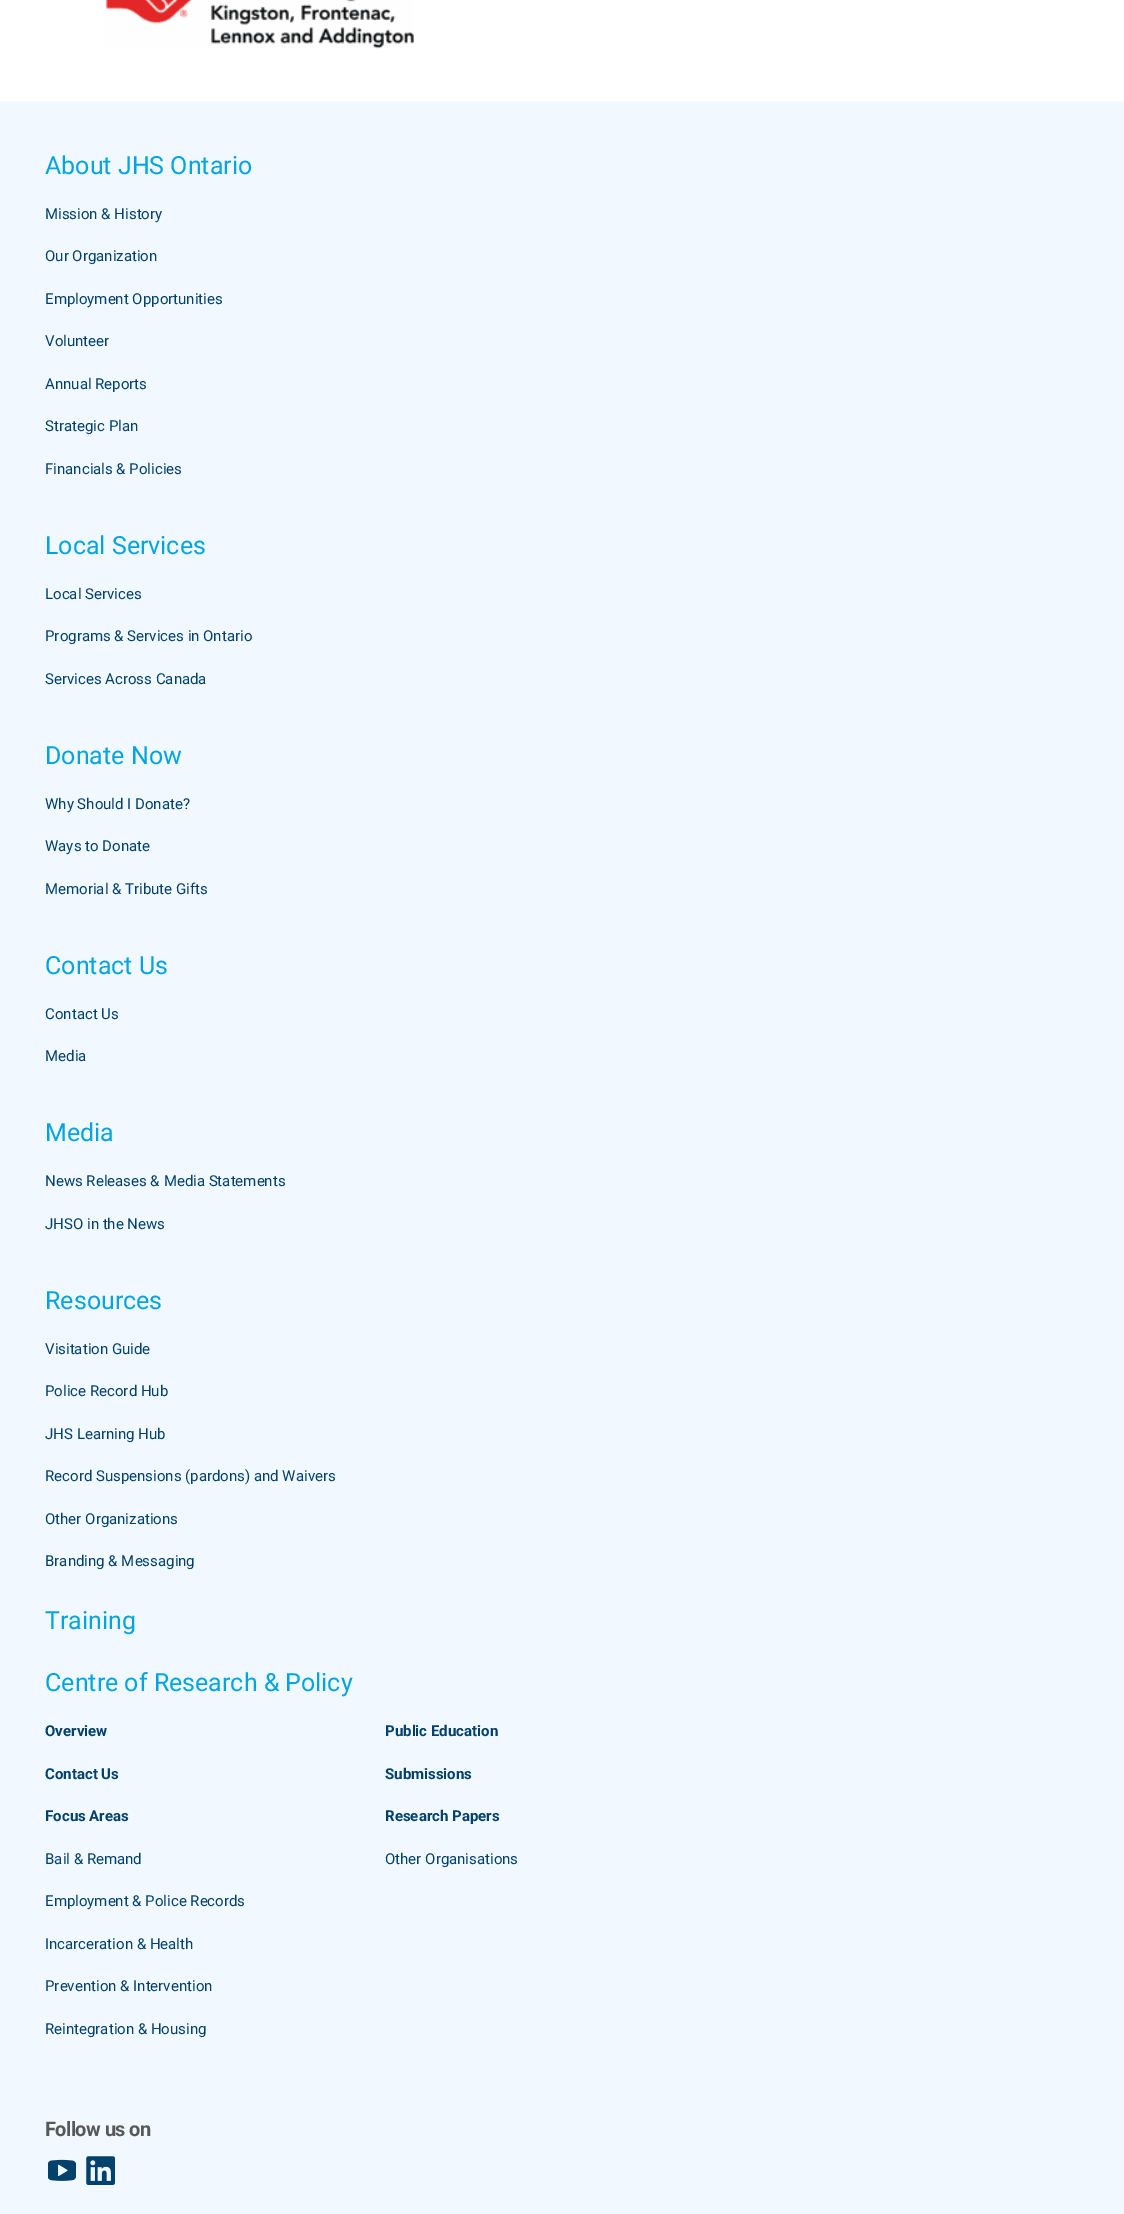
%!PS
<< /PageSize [1124 2214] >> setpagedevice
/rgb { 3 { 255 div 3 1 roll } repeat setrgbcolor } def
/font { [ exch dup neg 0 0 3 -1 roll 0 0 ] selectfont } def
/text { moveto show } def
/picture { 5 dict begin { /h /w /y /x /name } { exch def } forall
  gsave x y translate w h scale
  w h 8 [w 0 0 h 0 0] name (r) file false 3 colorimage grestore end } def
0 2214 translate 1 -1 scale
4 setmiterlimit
255 255 255 rgb
0 0 1124 2214 rectfill
(img_01.rgb) 105 0 309 49 picture
241 248 255 rgb
0 101 1124 2113 rectfill
(img_02.rgb) 48 2159 28 22 picture
(img_03.rgb) 86 2156 29 29 picture
/Roboto-Regular 25 font
0 165 223 rgb
(About JHS Ontario) 45 174 text
/Roboto-Regular 15 font
1 65 107 rgb
(Mission & History) 45 219 text
(Our Organization) 45 261 text
(Employment Opportunities) 45 304 text
(Volunteer) 45 346 text
(Annual Reports) 45 389 text
(Strategic Plan) 45 431 text
(Financials & Policies) 45 474 text
/Roboto-Regular 25 font
0 165 223 rgb
(Local Services) 45 554 text
/Roboto-Regular 15 font
1 65 107 rgb
(Local Services) 45 599 text
(Programs & Services in Ontario) 45 641 text
(Services Across Canada) 45 684 text
/Roboto-Regular 25 font
0 165 223 rgb
(Donate Now) 45 764 text
/Roboto-Regular 15 font
1 65 107 rgb
(Why Should I Donate?) 45 809 text
(Ways to Donate) 45 851 text
(Memorial & Tribute Gifts) 45 894 text
/Roboto-Regular 25 font
0 165 223 rgb
(Contact Us) 45 974 text
/Roboto-Regular 15 font
1 65 107 rgb
(Contact Us) 45 1019 text
(Media) 45 1061 text
/Roboto-Regular 25 font
0 165 223 rgb
(Media) 45 1141 text
/Roboto-Regular 15 font
1 65 107 rgb
(News Releases & Media Statements) 45 1186 text
(JHSO in the News) 45 1229 text
/Roboto-Regular 25 font
0 165 223 rgb
(Resources) 45 1309 text
/Roboto-Regular 15 font
1 65 107 rgb
(Visitation Guide) 45 1354 text
(Police Record Hub) 45 1396 text
(JHS Learning Hub) 45 1439 text
(Record Suspensions \(pardons\) and Waivers) 45 1481 text
(Other Organizations) 45 1524 text
(Branding & Messaging) 45 1566 text
/Roboto-Regular 25 font
0 165 223 rgb
(Training) 45 1629 text
(Centre of Research & Policy) 45 1691 text
/Roboto-Bold 15 font
1 65 107 rgb
(Overview) 45 1736 text
(Contact Us) 45 1779 text
(Focus Areas) 45 1821 text
/Roboto-Regular 15 font
(Bail & Remand) 45 1864 text
(Employment & Police Records) 45 1906 text
(Incarceration & Health) 45 1949 text
(Prevention & Intervention) 45 1991 text
(Reintegration & Housing) 45 2034 text
/Roboto-Bold 15 font
(Public Education) 385 1736 text
(Submissions) 385 1779 text
(Research Papers) 385 1821 text
/Roboto-Regular 15 font
(Other Organisations) 385 1864 text
/Roboto-Bold 20 font
88 88 88 rgb
45 2136 moveto -0.6 0 (Follow us on) ashow
showpage
